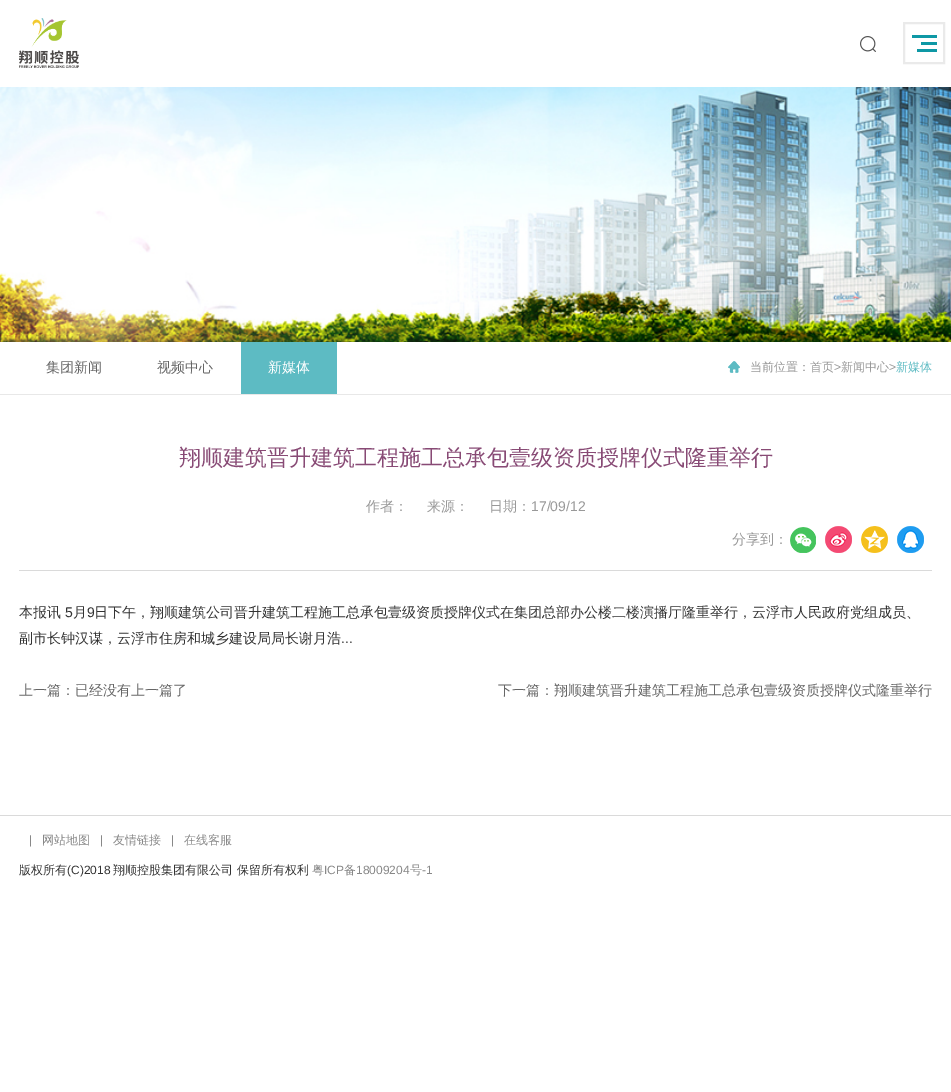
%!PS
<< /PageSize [951 1092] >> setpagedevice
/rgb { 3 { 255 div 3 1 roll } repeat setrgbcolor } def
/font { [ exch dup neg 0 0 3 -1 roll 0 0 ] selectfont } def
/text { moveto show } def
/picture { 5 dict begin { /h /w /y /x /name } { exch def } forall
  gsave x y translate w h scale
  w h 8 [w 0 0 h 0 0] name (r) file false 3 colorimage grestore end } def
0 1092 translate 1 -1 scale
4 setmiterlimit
255 255 255 rgb
0 0 951 1092 rectfill
(img_01.rgb) 19 18 60 50 picture
(img_02.rgb) 860 36 16 16 picture
(img_03.rgb) 912 35 25 17 picture
234 234 234 rgb
2 setlinewidth
904 23 40 40 rectstroke
(img_04.rgb) 0 87 951 255 picture
232 232 232 rgb
0 394 951 1 rectfill
93 187 195 rgb
241 342 96 52 rectfill
(img_05.rgb) 728 361 12 12 picture
218 218 218 rgb
19 570 913 1 rectfill
(img_06.rgb) 790 527 26 26 picture
(img_07.rgb) 825 526 27 27 picture
(img_08.rgb) 861 526 27 27 picture
(img_09.rgb) 897 526 27 27 picture
0 815 951 1 rectfill
/WenQuanYiZenHei-Medium 14 font
102 102 102 rgb
(集团新闻) 46 372 text
(视频中心) 157 372 text
255 255 255 rgb
(新媒体) 268 372 text
/WenQuanYiZenHei-Medium 12 font
153 153 153 rgb
(当前位置：首页) 750 371 text
/LiberationSans-Regular 12 font
(>) 834 371 text
/WenQuanYiZenHei-Medium 12 font
(新闻中心) 841 371 text
/LiberationSans-Regular 12 font
(>) 889 371 text
/WenQuanYiZenHei-Medium 12 font
93 187 195 rgb
(新媒体) 896 371 text
/WenQuanYiZenHei-Medium 22 font
136 74 117 rgb
(翔顺建筑晋升建筑工程施工总承包壹级资质授牌仪式隆重举行) 179 465 text
/WenQuanYiZenHei-Medium 14 font
153 153 153 rgb
(作者：) 366 511 text
(来源：) 427 511 text
(日期：) 489 511 text
/LiberationSans-Regular 14 font
(17/09/12) 531 511 text
/WenQuanYiZenHei-Medium 14 font
(分享到：) 732 544 text
51 51 51 rgb
(本报讯) 19 617 text
/LiberationSans-Regular 14 font
(5) 65 617 text
/WenQuanYiZenHei-Medium 14 font
(月) 73 617 text
/LiberationSans-Regular 14 font
(9) 87 617 text
/WenQuanYiZenHei-Medium 14 font
(日下午，翔顺建筑公司晋升建筑工程施工总承包壹级资质授牌仪式在集团总部办公楼二楼演播厅隆重举行，云浮市人民政府党组成员、) 94 617 text
(副市长钟汉谋，云浮市住房和城乡建设局局长谢月浩) 19 643 text
/LiberationSans-Regular 14 font
(...) 341 643 text
/WenQuanYiZenHei-Medium 14 font
102 102 102 rgb
(上一篇：已经没有上一篇了) 19 695 text
(下一篇：翔顺建筑晋升建筑工程施工总承包壹级资质授牌仪式隆重举行) 498 695 text
/LiberationSans-Regular 12 font
136 136 136 rgb
(|) 29 844 text
/WenQuanYiZenHei-Medium 12 font
(网站地图) 42 844 text
/LiberationSans-Regular 12 font
(|) 100 844 text
/WenQuanYiZenHei-Medium 12 font
(友情链接) 113 844 text
/LiberationSans-Regular 12 font
(|) 171 844 text
/WenQuanYiZenHei-Medium 12 font
(在线客服) 184 844 text
51 51 51 rgb
(版权所有) 19 874 text
/LiberationSans-Regular 12 font
(\(C\)2018) 67 874 text
/WenQuanYiZenHei-Medium 12 font
(翔顺控股集团有限公司 保留所有权利) 113 874 text
136 136 136 rgb
(粤) 312 874 text
/LiberationSans-Regular 12 font
(ICP) 324 874 text
/WenQuanYiZenHei-Medium 12 font
(备) 344 874 text
/LiberationSans-Regular 12 font
(18009204) 356 874 text
/WenQuanYiZenHei-Medium 12 font
(号) 410 874 text
/LiberationSans-Regular 12 font
(-1) 422 874 text
showpage
